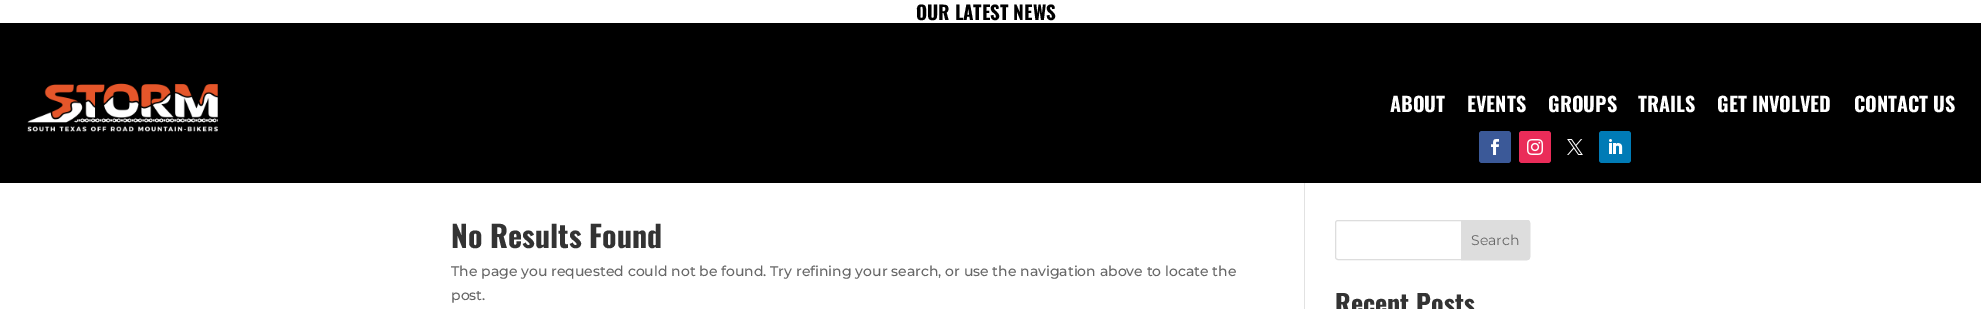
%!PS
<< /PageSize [1981 309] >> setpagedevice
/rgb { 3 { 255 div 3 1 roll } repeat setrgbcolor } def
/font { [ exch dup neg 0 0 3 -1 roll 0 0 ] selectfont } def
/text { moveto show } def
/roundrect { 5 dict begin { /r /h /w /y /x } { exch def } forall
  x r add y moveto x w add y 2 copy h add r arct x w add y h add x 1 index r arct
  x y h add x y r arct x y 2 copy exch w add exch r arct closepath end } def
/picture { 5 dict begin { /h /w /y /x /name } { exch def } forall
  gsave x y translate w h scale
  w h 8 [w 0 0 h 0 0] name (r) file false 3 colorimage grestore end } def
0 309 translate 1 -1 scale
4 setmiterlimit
255 255 255 rgb
0 0 1981 309 rectfill
0 0 0 rgb
0 23 1981 160 rectfill
(img_01.rgb) 27 83 191 49 picture
59 89 152 rgb
1479 131 32 32 3 roundrect fill
(img_02.rgb) 1491 139 8 16 picture
234 44 89 rgb
1519 131 32 32 3 roundrect fill
(img_03.rgb) 1527 139 16 16 picture
(img_04.rgb) 1567 139 16 16 picture
0 123 182 rgb
1599 131 32 32 3 roundrect fill
(img_05.rgb) 1609 139 14 15 picture
226 226 226 rgb
1304 183 1 126 rectfill
221 221 221 rgb
1335.5 220.5 194 39 2.5 roundrect stroke
1461.5 220.5 moveto 65.5 0 rlineto 1.5 0 2.5 1 2.5 2.5 rcurveto 0 34 rlineto 0 1.5 -1 2.5 -2.5 2.5 rcurveto -65.5 0 rlineto closepath gsave fill grestore
stroke
/Oswald-Bold 19 font
0 0 0 rgb
(OUR LATEST NEWS) 916 20 text
/Oswald-Bold 20 font
255 255 255 rgb
(ABOUT) 1390 112 text
(EVENTS) 1467 112 text
(GROUPS) 1548 112 text
(TRAILS) 1638 112 text
(GET INVOLVED) 1717 112 text
(CONTACT US) 1854 112 text
/Oswald-Bold 30 font
51 51 51 rgb
(No Results Found) 451 248 text
/Montserrat-Medium 14 font
102 102 102 rgb
(The page you requested could not be found. Try refining your search, or use the navigation above to locate the) 451 276 text
(post.) 451 300 text
/Montserrat-Regular 14 font
(Search) 1471 245 text
/Oswald-Bold 26 font
51 51 51 rgb
(Recent Posts) 1335 314 text
showpage
